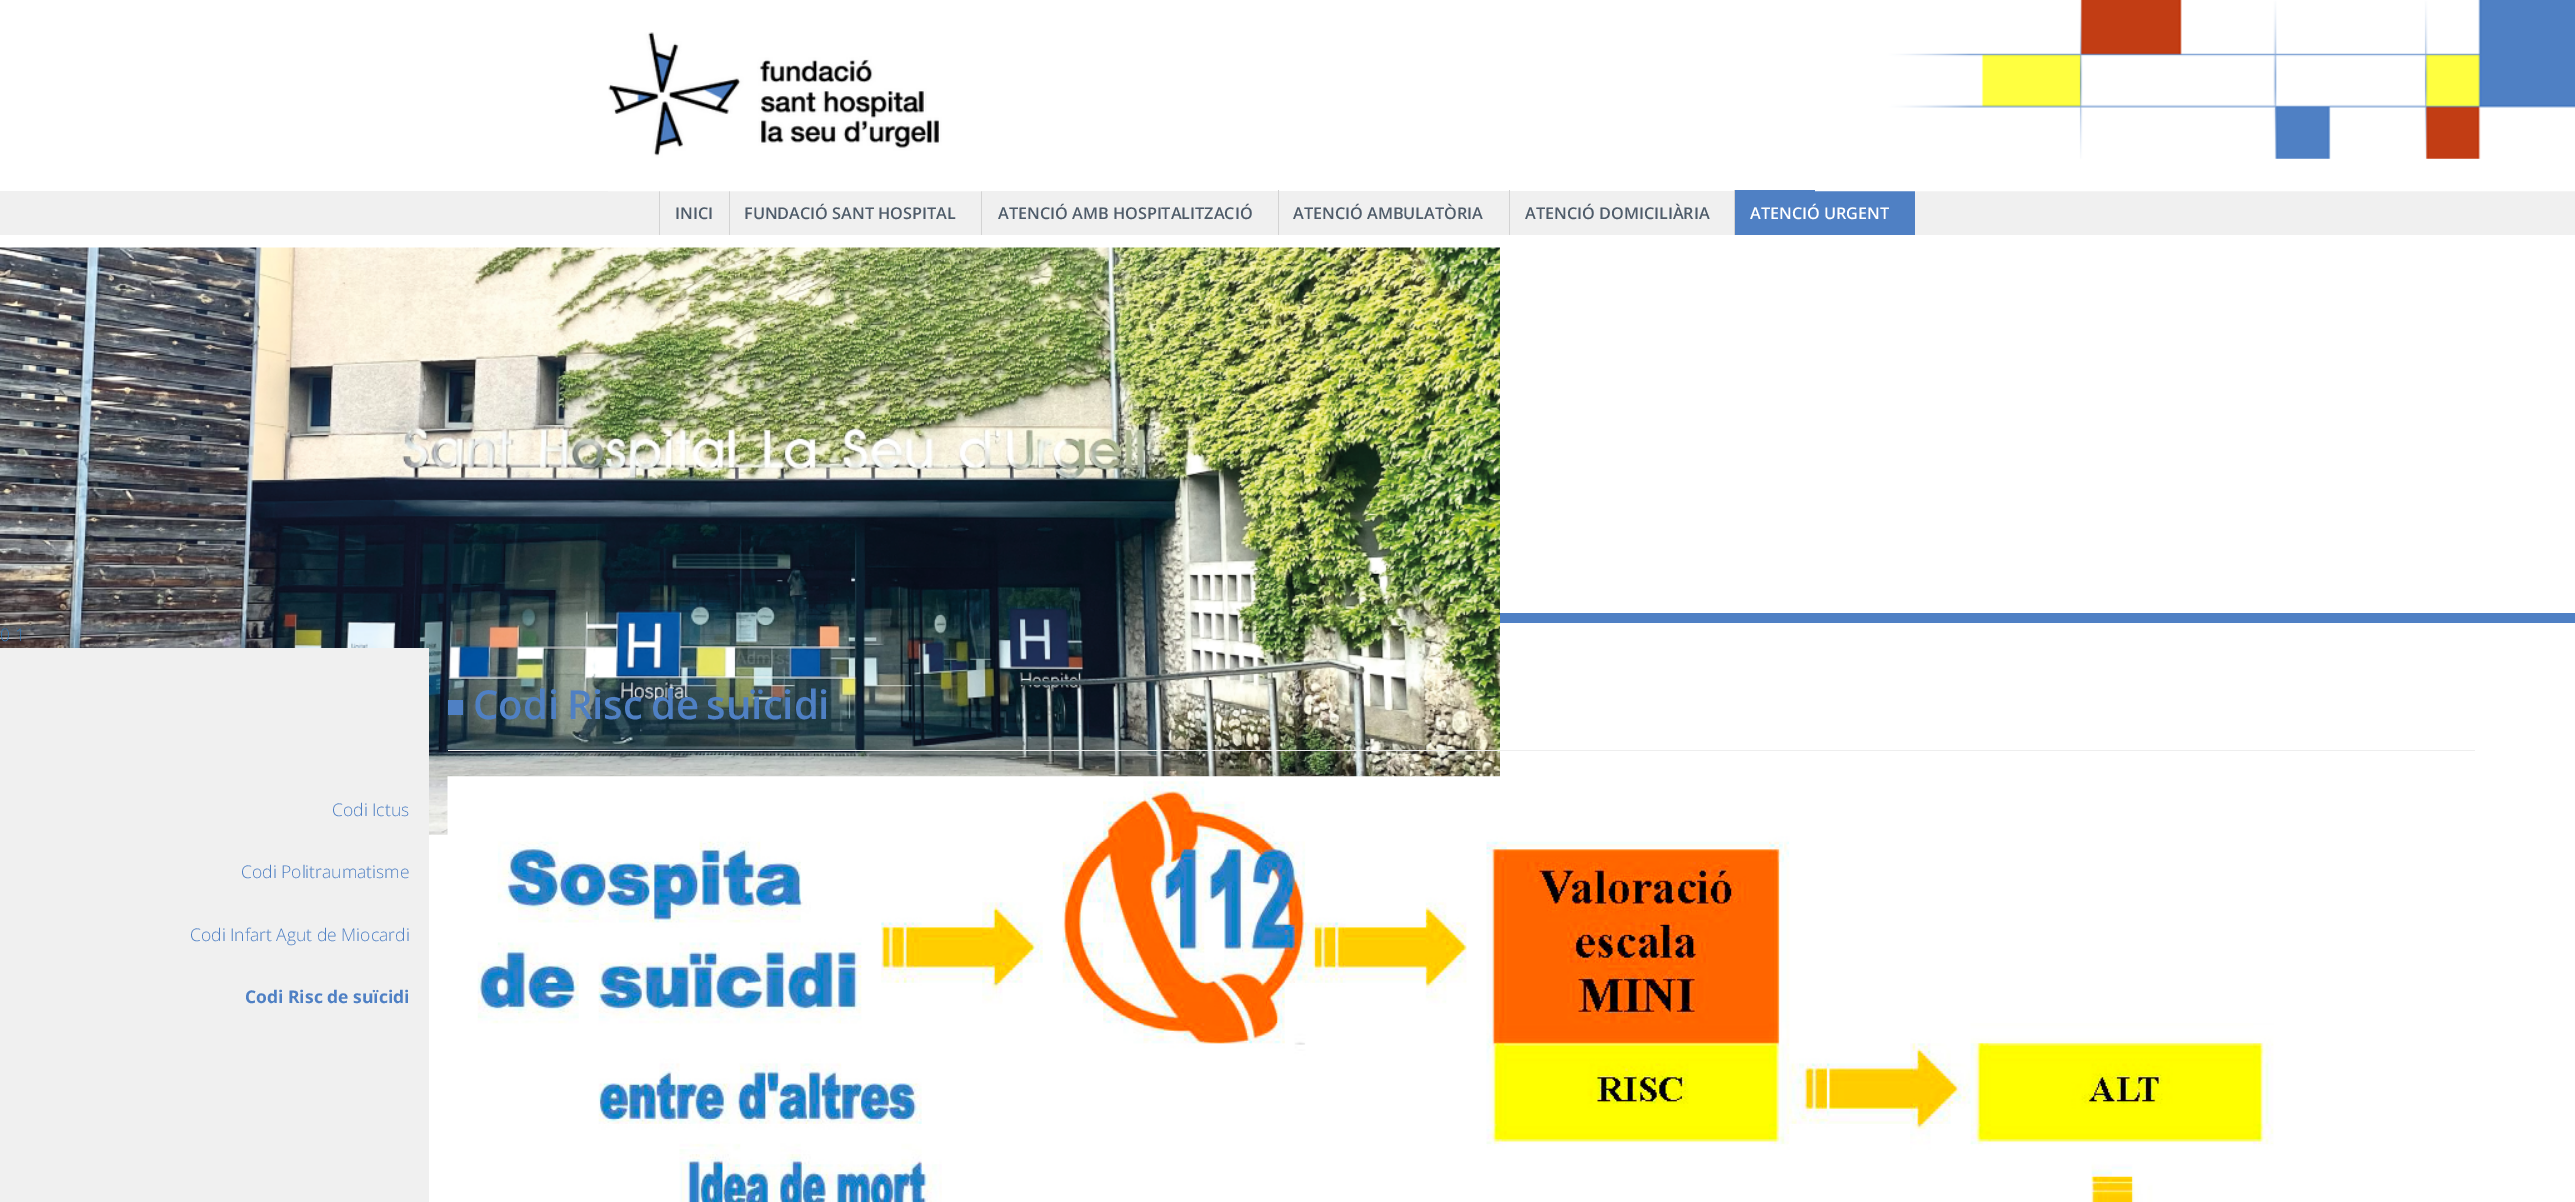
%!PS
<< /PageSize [2575 1202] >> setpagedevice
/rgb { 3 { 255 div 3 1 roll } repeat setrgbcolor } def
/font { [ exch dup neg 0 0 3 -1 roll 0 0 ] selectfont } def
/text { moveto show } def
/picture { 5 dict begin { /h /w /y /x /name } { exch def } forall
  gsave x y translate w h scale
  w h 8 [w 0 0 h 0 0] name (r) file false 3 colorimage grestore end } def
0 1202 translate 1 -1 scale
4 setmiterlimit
255 255 255 rgb
0 0 2575 1202 rectfill
240 240 240 rgb
0 191 2575 44 rectfill
211 211 211 rgb
729 190 1 45 rectfill
659 190 1 45 rectfill
981 190 1 45 rectfill
(img_01.rgb) 608 32 374 160 picture
79 128 196 rgb
1735 190 180 45 rectfill
(img_02.rgb) 1815 0 760 192 picture
211 211 211 rgb
1278 190 1 45 rectfill
1509 190 1 45 rectfill
1734 190 1 45 rectfill
79 128 196 rgb
1500 613 1075 10 rectfill
(img_03.rgb) 0 247 1500 588 picture
238 238 238 rgb
448 750 2027 1 rectfill
79 128 196 rgb
448 700 15 15 rectfill
(img_04.rgb) 447 776 1827 426 picture
240 240 240 rgb
0 648 429 554 rectfill
/OpenSans-SemiBold 16.25 font
79 92 106 rgb
(INICI) 675 219 text
(FUNDACIÓ SANT HOSPITAL) 744 219 text
(ATENCIÓ AMB HOSPITALITZACIÓ) 998 219 text
(ATENCIÓ AMBULATÒRIA) 1293 219 text
(ATENCIÓ DOMICILIÀRIA) 1525 219 text
255 255 255 rgb
(ATENCIÓ URGENT) 1750 219 text
/OpenSans-Light 17.5 font
51 122 183 rgb
(0 1) 0 641 text
/OpenSans-SemiBold 40 font
79 128 196 rgb
473 719 moveto -2.5 0 32 (Codi Risc de suïcidi) widthshow
/OpenSans-Light 17.5 font
(Codi Ictus) 332 816 text
(Codi Politraumatisme) 241 878 text
(Codi Infart Agut de Miocardi) 190 941 text
/OpenSans-Bold 17.5 font
(Codi Risc de suïcidi) 245 1003 text
showpage
